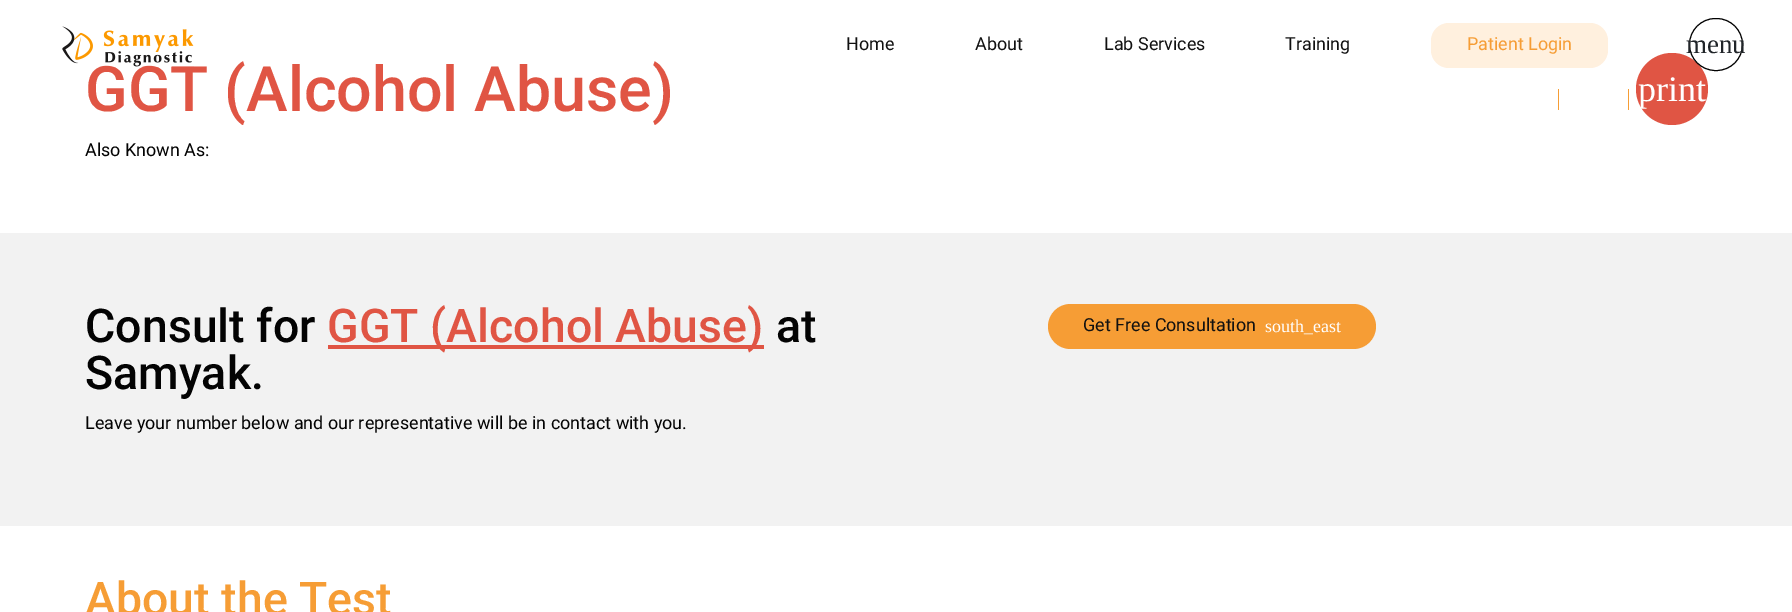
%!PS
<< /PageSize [1792 612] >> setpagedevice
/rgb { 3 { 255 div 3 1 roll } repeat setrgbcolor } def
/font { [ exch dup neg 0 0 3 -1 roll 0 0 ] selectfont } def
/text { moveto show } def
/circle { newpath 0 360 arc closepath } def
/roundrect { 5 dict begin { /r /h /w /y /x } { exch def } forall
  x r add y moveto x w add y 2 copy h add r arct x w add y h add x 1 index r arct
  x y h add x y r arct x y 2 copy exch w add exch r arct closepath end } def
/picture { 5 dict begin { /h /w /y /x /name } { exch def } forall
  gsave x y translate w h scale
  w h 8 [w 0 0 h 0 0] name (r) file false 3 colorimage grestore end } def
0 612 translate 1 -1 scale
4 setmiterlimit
255 255 255 rgb
0 0 1792 612 rectfill
255 240 222 rgb
1431 23 177 45 18 roundrect fill
224 85 68 rgb
1672 89 36 circle fill
0 0 0 rgb
1689.5 18.5 53 52 26 roundrect stroke
246 157 53 rgb
1558 89 1 21 rectfill
1628 89 1 21 rectfill
242 242 242 rgb
0 233 1792 293 rectfill
224 85 68 rgb
328 345 436 4 rectfill
246 157 53 rgb
1048 304 328 45 22.5 roundrect fill
/Roboto-Regular 17.95 font
17 17 17 rgb
(Home) 846 50 text
(About) 975 50 text
(Lab Services) 1104 50 text
(Training) 1285 50 text
246 157 53 rgb
(Patient Login) 1467 50 text
/LiberationSerif-Regular 27 font
33 37 41 rgb
(menu) 1686 53 text
/Roboto-Medium 62.75 font
224 85 68 rgb
(GGT \(Alcohol Abuse\)) 85 111 text
(img_01.rgb) 62 26 132 41 picture
/Roboto-Regular 17.95 font
3 3 3 rgb
(Also Known As:) 85 156 text
/LiberationSerif-Regular 36 font
255 255 255 rgb
(print) 1638 101 text
/Roboto-Medium 46.5 font
3 3 3 rgb
(Consult for) 85 342 text
224 85 68 rgb
(GGT \(Alcohol Abuse\)) 327 342 text
3 3 3 rgb
(at) 776 342 text
(Samyak.) 85 389 text
/Roboto-Regular 17.95 font
(Leave your number below and our representative will be in contact with you.) 85 429 text
17 17 17 rgb
(Get Free Consultation) 1083 331 text
/LiberationSerif-Regular 17.95 font
255 255 255 rgb
(south_east) 1265 332 text
/Roboto-Medium 46.5 font
246 157 53 rgb
(About the Test) 85 615 text
showpage
